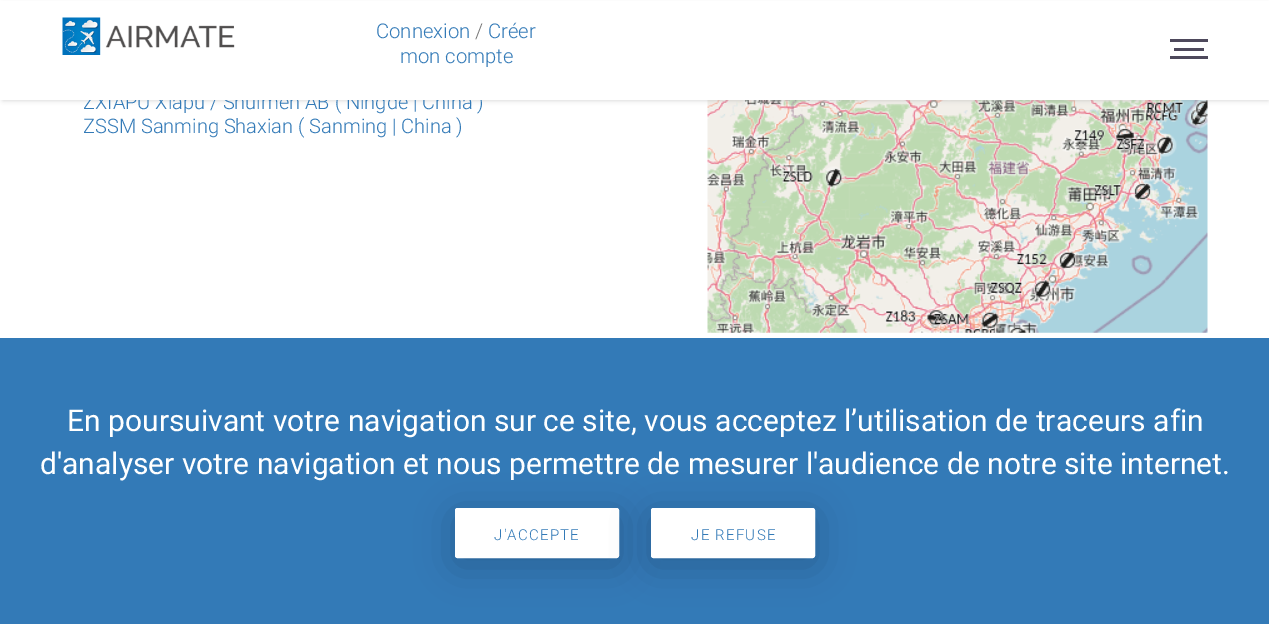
%!PS
<< /PageSize [1269 624] /PageUsesTransparency true >> setpagedevice
/rgb { 3 { 255 div 3 1 roll } repeat setrgbcolor } def
/font { [ exch dup neg 0 0 3 -1 roll 0 0 ] selectfont } def
/text { moveto show } def
/alpha { dup .setfillconstantalpha .setstrokeconstantalpha } def
/roundrect { 5 dict begin { /r /h /w /y /x } { exch def } forall
  x r add y moveto x w add y 2 copy h add r arct x w add y h add x 1 index r arct
  x y h add x y r arct x y 2 copy exch w add exch r arct closepath end } def
/shadow { 12 dict begin { /a /b /q /h /w /y /x } { exch def } forall gsave /was 0 def
  9 -2 -9 { dup b mul 4 div /e exch def 1 sub .425 mul 2.718 exch exp 1 add a .99 .min exch div /now exch def
    1 1 now sub 1 was sub div sub alpha /was now def
    w h .min e 2 mul add 0 gt { x e sub y e sub w e 2 mul add h e 2 mul add
      q e add b .6 mul add w h .min 2 div e add .min 0 .max roundrect fill } if } for grestore end } def
/picture { 5 dict begin { /h /w /y /x /name } { exch def } forall
  gsave x y translate w h scale
  w h 8 [w 0 0 h 0 0] name (r) file false 3 colorimage grestore end } def
0 .pushpdf14devicefilter
0 624 translate 1 -1 scale
4 setmiterlimit
255 255 255 rgb
0 0 1269 624 rectfill
51 122 183 rgb
0 338 1269 286 rectfill
0 0 0 rgb
455 515 164 50 2.5 19 0.2 shadow
255 255 255 rgb
455.5 508.5 163 49 2 roundrect gsave fill grestore
stroke
0 0 0 rgb
651 515 164 50 2.5 19 0.2 shadow
255 255 255 rgb
651.5 508.5 163 49 2 roundrect gsave fill grestore
stroke
(img_02.rgb) 707 100 501 233 picture
156 156 156 rgb
3 5 1265 95 0 2.5 0.5 shadow
/Roboto-Regular 30 font
255 255 255 rgb
(En poursuivant votre navigation sur ce site, vous acceptez l’utilisation de traceurs afin) 67 431 text
(d'analyser votre navigation et nous permettre de mesurer l'audience de notre site internet.) 40 474 text
/Roboto-Light 15 font
51 122 183 rgb
494 540 moveto 1.25 0 (J'ACCEPTE) ashow
691 540 moveto 1.25 0 (JE REFUSE) ashow
/Roboto-Light 20 font
(ZXIAPU Xiapu / Shuimen AB \( Ningde | China \)) 83 109 text
255 255 255 rgb
0 1 1269 99 rectfill
/Roboto-Light 20.25 font
51 122 183 rgb
(mon compte) 400 63 text
(Créer) 488 38 text
119 119 119 rgb
(/) 475 38 text
51 122 183 rgb
(Connexion) 376 38 text
(img_01.rgb) 62 17 173 38 picture
78 73 92 rgb
1170 56 38 3 rectfill
1174 48 30 3 rectfill
1170 39 38 3 rectfill
/Roboto-Light 20 font
51 122 183 rgb
(ZSSM Sanming Shaxian \( Sanming | China \)) 83 133 text
.poppdf14devicefilter showpage
